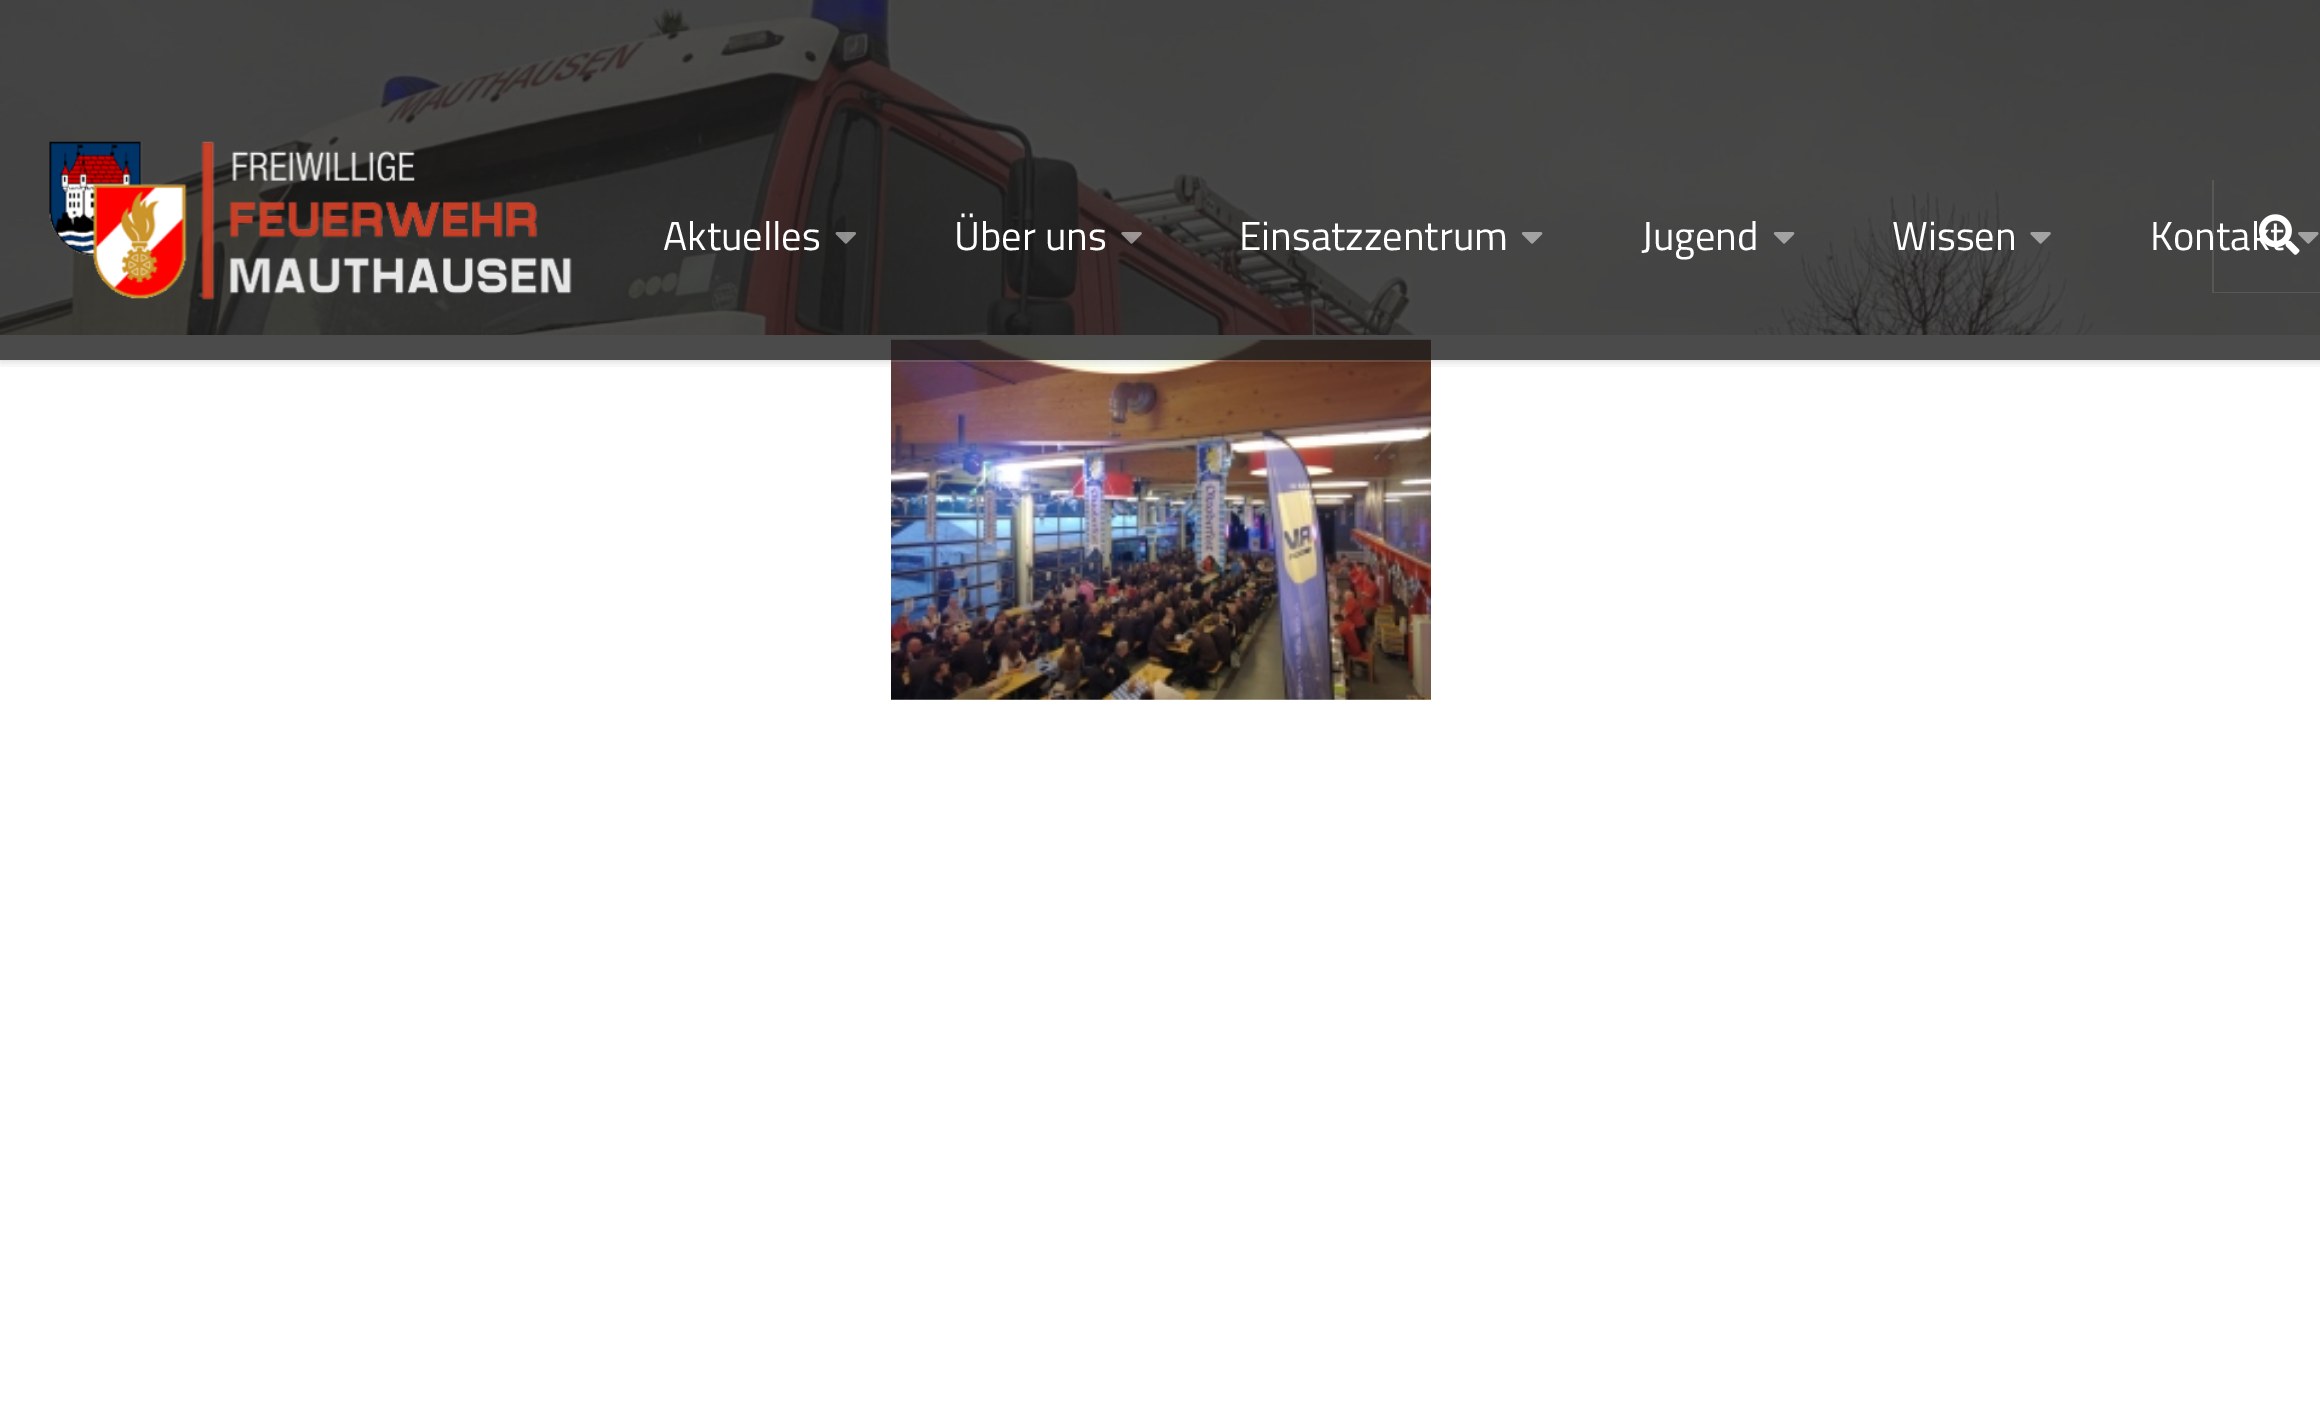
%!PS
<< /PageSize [2320 1426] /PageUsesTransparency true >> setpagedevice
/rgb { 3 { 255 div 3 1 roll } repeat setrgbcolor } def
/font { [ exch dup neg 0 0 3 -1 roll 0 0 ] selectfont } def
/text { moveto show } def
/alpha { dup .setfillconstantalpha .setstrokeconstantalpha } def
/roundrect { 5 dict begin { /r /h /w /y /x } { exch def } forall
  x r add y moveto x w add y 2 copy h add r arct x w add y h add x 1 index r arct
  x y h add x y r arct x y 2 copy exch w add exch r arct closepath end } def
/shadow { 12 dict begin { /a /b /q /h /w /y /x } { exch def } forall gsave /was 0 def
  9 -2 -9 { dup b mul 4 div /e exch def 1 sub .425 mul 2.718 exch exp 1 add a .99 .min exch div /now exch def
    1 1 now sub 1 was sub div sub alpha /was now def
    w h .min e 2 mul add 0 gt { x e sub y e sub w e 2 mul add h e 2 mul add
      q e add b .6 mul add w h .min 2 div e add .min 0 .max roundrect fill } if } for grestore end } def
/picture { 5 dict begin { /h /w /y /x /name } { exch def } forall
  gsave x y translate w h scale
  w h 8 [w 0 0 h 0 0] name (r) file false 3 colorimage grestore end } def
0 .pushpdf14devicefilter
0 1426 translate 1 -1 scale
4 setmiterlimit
255 255 255 rgb
0 0 2320 1426 rectfill
(img_01.rgb) 0 0 2320 335 picture
(img_10.rgb) 891 339 540 361 picture
0.15 alpha
891 360 540 2 rectfill
gsave
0 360 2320 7 rectclip
1 alpha
0 0 0 rgb
0 0 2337 360 0 5.5 0.2 shadow
grestore
0.8 alpha
30 30 30 rgb
0 0 2320 360 rectfill
1 alpha
(img_09.rgb) 2298 232 21 12 picture
0.1 alpha
255 255 255 rgb
2212 180 moveto 0 113 rlineto 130 0 rlineto 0 -1 rlineto -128 0 rlineto 0 -112 rlineto closepath fill
1 alpha
(img_03.rgb) 49 141 523 159 picture
(img_04.rgb) 835 232 22 12 picture
(img_05.rgb) 1121 232 21 12 picture
(img_06.rgb) 1521 232 22 12 picture
(img_07.rgb) 1773 232 22 12 picture
(img_08.rgb) 2030 232 21 12 picture
/TitilliumWeb-Regular 40.5 font
(Aktuelles) 663 250 text
(Über uns) 954 250 text
(Einsatzzentrum) 1239 250 text
(Jugend) 1641 250 text
(Wissen) 1892 250 text
(Kontakt) 2150 250 text
(img_02.rgb) 2259 214 41 41 picture
.poppdf14devicefilter showpage
